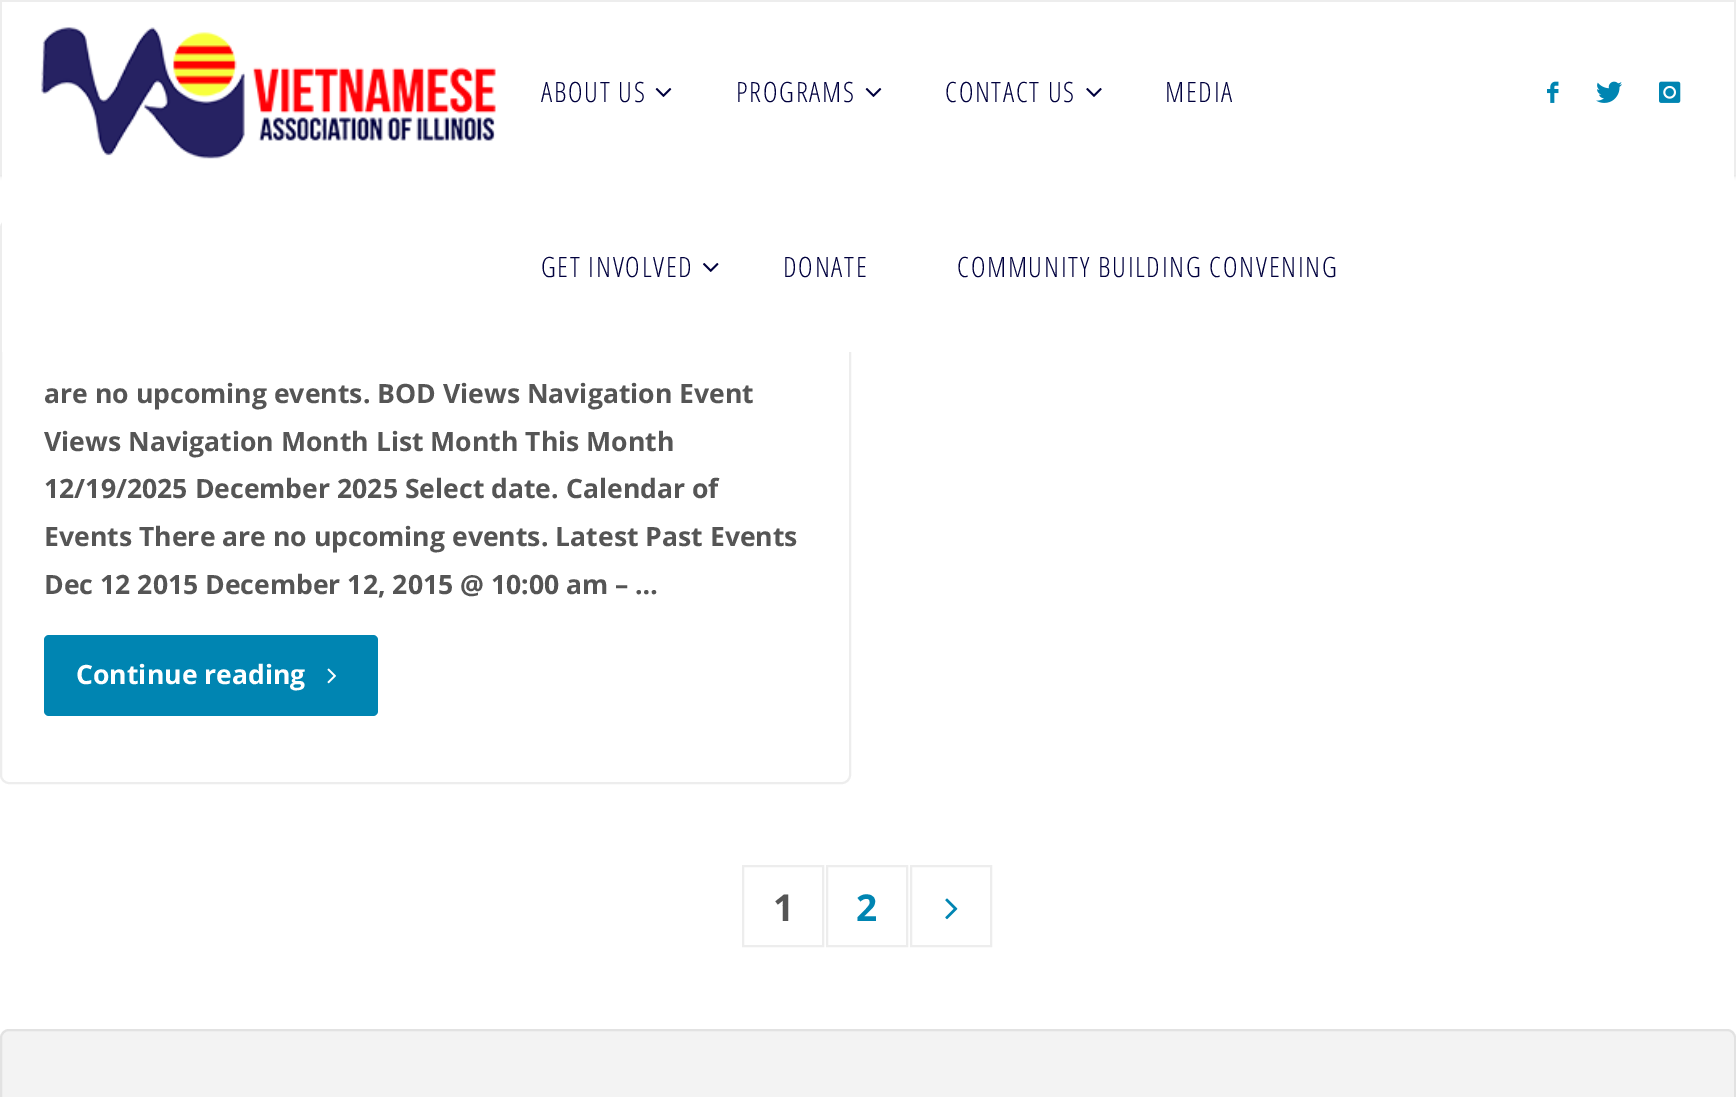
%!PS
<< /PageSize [1736 1097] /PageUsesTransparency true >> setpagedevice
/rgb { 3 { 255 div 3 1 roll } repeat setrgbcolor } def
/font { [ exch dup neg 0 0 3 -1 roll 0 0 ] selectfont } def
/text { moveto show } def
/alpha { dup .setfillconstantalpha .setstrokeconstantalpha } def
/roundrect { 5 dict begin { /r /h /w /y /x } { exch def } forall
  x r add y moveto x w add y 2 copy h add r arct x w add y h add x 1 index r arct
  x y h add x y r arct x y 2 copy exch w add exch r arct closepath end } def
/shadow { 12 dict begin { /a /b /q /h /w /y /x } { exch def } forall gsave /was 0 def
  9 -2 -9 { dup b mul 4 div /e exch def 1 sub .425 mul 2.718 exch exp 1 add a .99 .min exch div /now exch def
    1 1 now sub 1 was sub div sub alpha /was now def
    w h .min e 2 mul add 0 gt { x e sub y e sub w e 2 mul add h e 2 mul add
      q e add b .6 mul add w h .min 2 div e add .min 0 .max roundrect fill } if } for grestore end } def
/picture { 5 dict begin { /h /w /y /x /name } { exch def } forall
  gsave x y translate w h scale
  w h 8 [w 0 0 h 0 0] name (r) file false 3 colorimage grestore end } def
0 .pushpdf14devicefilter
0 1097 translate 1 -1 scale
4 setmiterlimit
255 255 255 rgb
0 0 1736 1097 rectfill
0 0 0 rgb
0 0 1736 175 0 2.5 0.2 shadow
237 237 237 rgb
2 setlinewidth
1 1 1734 173 rectstroke
1 220 849 563 8 roundrect stroke
255 255 255 rgb
2 2 1732 350 rectfill
(img_01.rgb) 41 27 455 132 picture
(img_02.rgb) 655 88 17 9 picture
(img_02.rgb) 865 88 17 9 picture
(img_03.rgb) 1086 88 16 9 picture
(img_04.rgb) 703 263 16 9 picture
(img_05.rgb) 1547 81 12 22 picture
(img_06.rgb) 1596 81 26 22 picture
(img_07.rgb) 1659 81 22 22 picture
0 133 178 rgb
44 635 334 81 5 roundrect fill
(img_08.rgb) 327 668 9 16 picture
237 237 237 rgb
743 866 80 80 rectstroke
827 866 80 80 rectstroke
911 866 80 80 rectstroke
(img_09.rgb) 945 898 13 22 picture
243 243 243 rgb
0 1029 1736 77 9 roundrect fill
0.07 alpha
0 0 0 rgb
1 1030 1734 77 8 roundrect stroke
/OpenSansCondensed-Light 28 font
1 alpha
0 0 61 rgb
541 102 moveto 1.75 0 (ABOUT US) ashow
736 102 moveto 1.75 0 (PROGRAMS) ashow
945 102 moveto 1.75 0 (CONTACT US) ashow
1165 102 moveto 1.75 0 (MEDIA) ashow
541 277 moveto 1.75 0 (GET INVOLVED) ashow
783 277 moveto 1.75 0 (DONATE) ashow
957 277 moveto 1.75 0 (COMMUNITY BUILDING CONVENING) ashow
/OpenSans-Bold 26.6 font
85 85 85 rgb
(are no upcoming events. BOD Views Navigation Event) 44 403 text
(Views Navigation Month List Month This Month) 44 451 text
(12/19/2025 December 2025 Select date. Calendar of) 44 498 text
(Events There are no upcoming events. Latest Past Events) 44 546 text
(Dec 12 2015 December 12, 2015 @ 10:00 am – …) 44 594 text
255 255 255 rgb
(Continue reading) 76 684 text
/OpenSans-Bold 37 font
85 85 85 rgb
(1) 773 921 text
0 133 178 rgb
(2) 856 921 text
.poppdf14devicefilter showpage
